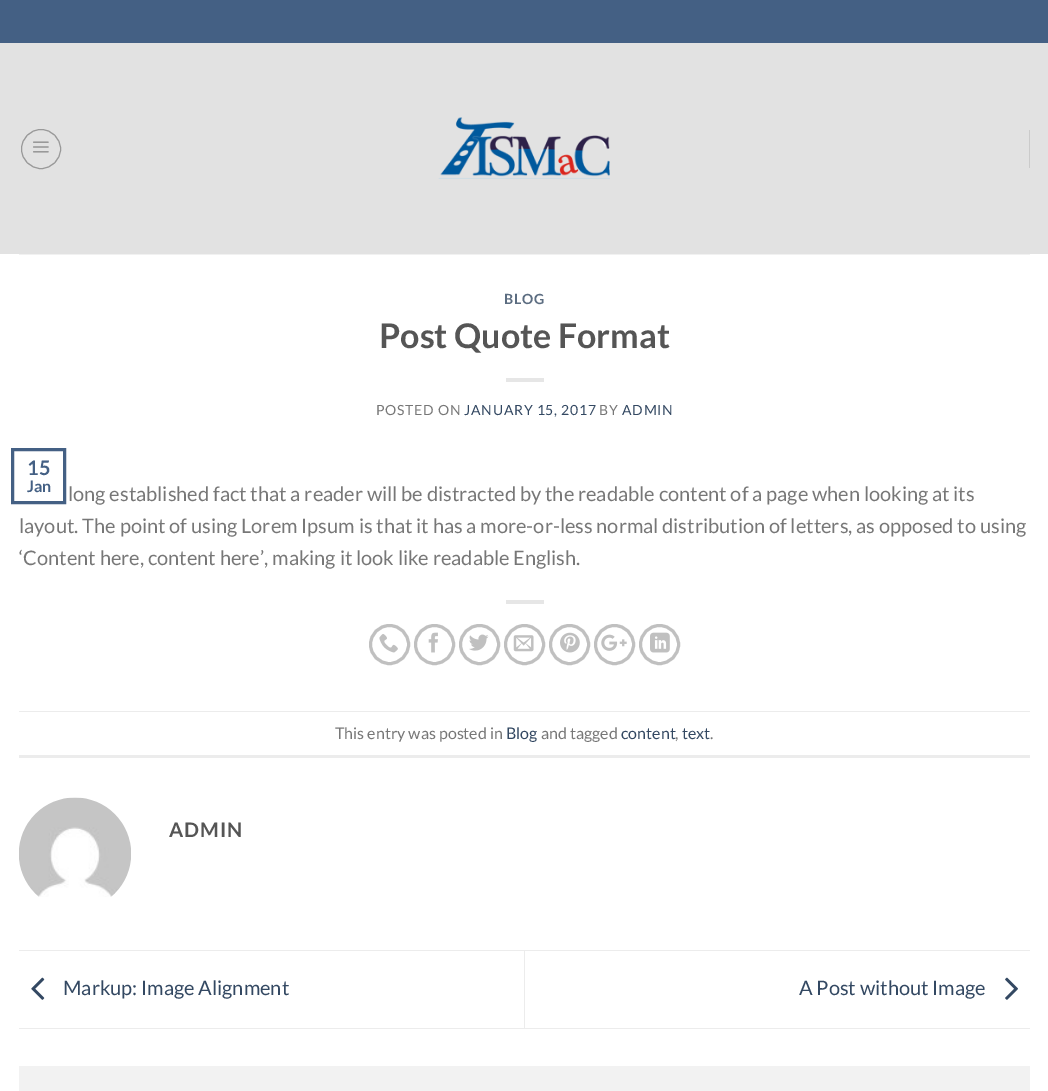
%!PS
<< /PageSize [1048 1091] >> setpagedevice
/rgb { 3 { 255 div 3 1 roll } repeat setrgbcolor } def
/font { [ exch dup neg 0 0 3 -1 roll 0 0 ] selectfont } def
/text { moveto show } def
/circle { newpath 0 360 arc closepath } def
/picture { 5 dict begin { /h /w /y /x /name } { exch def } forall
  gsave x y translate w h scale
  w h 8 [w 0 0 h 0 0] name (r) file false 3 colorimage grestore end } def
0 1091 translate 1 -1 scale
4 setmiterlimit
255 255 255 rgb
0 0 1048 1091 rectfill
68 96 132 rgb
0 0 1048 43 rectfill
226 226 226 rgb
0 43 1048 211 rectfill
153 153 153 rgb
41 149 19.5 circle stroke
(img_01.rgb) 33 141 16 12 picture
(img_02.rgb) 438 117 172 62 picture
203 203 203 rgb
1029 130 1 38 rectfill
241 241 241 rgb
19 254 1011 1 rectfill
230 230 230 rgb
506 378 38 4 rectfill
68 96 132 rgb
3 setlinewidth
12.5 449.5 52 53 rectstroke
230 230 230 rgb
506 600 38 4 rectfill
192 192 192 rgb
389.5 644.5 19 circle stroke
(img_03.rgb) 379 634 19 19 picture
434.5 644.5 19 circle stroke
(img_04.rgb) 428 632 10 21 picture
479.5 644.5 19 circle stroke
(img_05.rgb) 469 634 20 17 picture
524.5 644.5 19 circle stroke
(img_06.rgb) 513 635 21 17 picture
569.5 644.5 19 circle stroke
(img_07.rgb) 560 632 20 21 picture
614.5 644.5 19 circle stroke
(img_08.rgb) 601 634 26 17 picture
659.5 644.5 19 circle stroke
(img_09.rgb) 650 632 20 21 picture
236 236 236 rgb
19 711 1011 1 rectfill
19 755 1011 3 rectfill
(img_10.rgb) 19 797 112 100 picture
19 950 1011 1 rectfill
19 1028 1011 1 rectfill
(img_11.rgb) 31 977 14 23 picture
524 951 1 77 rectfill
(img_12.rgb) 1005 977 13 23 picture
242 242 242 rgb
19 1066 1011 25 rectfill
/Lato-Bold 14 font
92 109 129 rgb
504 304 moveto 0.75 0 (BLOG) ashow
/Lato-Bold 34 font
85 85 85 rgb
(Post Quote Format) 379 348 text
/Lato-Regular 14 font
119 119 119 rgb
376 415 moveto 0.75 0 (POSTED ON) ashow
51 72 98 rgb
464 415 moveto 0.75 0 (JANUARY 15, 2017) ashow
119 119 119 rgb
599 415 moveto 0.75 0 (BY) ashow
51 72 98 rgb
622 415 moveto 0.75 0 (ADMIN) ashow
/Lato-Bold 20 font
68 96 132 rgb
(15) 27 475 text
/Lato-Bold 16 font
(Jan) 27 492 text
/Lato-Regular 20 font
119 119 119 rgb
(long established fact that a reader will be distracted by the readable content of a page when looking at its) 68 501 text
(layout. The point of using Lorem Ipsum is that it has a more-or-less normal distribution of letters, as opposed to using) 19 533 text
(‘Content here, content here’, making it look like readable English.) 19 565 text
/Lato-Regular 16 font
(This entry was posted in) 335 739 text
51 72 98 rgb
(Blog) 506 739 text
119 119 119 rgb
(and tagged) 541 739 text
51 72 98 rgb
(content) 621 739 text
119 119 119 rgb
(,) 675 739 text
51 72 98 rgb
(text) 682 739 text
119 119 119 rgb
(.) 710 739 text
/Lato-Bold 20 font
85 85 85 rgb
169 837 moveto 1 0 (ADMIN) ashow
/Lato-Regular 20 font
51 72 98 rgb
(Markup: Image Alignment) 63 995 text
(A Post without Image) 799 995 text
showpage
